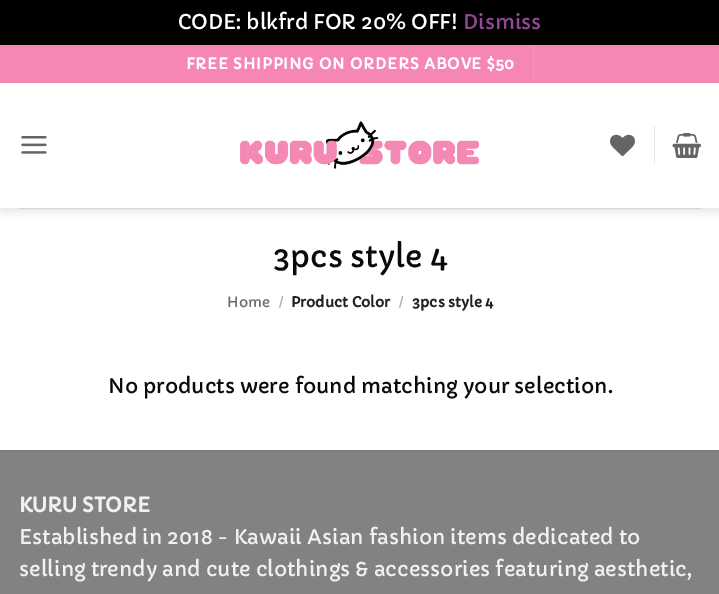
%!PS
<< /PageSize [719 594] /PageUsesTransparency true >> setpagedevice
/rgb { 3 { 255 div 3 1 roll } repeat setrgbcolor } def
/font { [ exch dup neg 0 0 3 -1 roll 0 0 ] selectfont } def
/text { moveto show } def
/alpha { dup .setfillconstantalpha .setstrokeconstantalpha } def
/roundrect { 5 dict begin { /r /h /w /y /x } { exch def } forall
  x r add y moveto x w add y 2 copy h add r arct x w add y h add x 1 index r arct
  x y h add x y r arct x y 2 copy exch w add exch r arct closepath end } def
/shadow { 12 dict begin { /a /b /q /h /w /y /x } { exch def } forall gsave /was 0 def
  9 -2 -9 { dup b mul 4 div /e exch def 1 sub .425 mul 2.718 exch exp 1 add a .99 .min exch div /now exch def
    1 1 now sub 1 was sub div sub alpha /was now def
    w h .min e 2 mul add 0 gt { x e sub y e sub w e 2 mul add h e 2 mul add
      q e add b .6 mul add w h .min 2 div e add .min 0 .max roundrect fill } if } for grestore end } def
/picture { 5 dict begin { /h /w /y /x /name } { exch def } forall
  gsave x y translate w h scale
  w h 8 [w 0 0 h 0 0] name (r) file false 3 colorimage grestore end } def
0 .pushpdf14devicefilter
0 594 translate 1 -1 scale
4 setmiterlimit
0 0 0 rgb
0 0 719 594 rectfill
255 255 255 rgb
0 83 719 367 rectfill
gsave
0 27 moveto 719 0 rlineto 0 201 rlineto -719 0 rlineto closepath 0 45 moveto 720 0 rlineto 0 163 rlineto -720 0 rlineto closepath eoclip newpath
0 0 0 rgb
1 46 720 163 0 6 0.15 shadow
grestore
246 135 180 rgb
0 45 719 38 rectfill
247 147 188 rgb
533 45 1 38 rectfill
(img_01.rgb) 21 136 26 18 picture
(img_02.rgb) 240 121 239 48 picture
(img_03.rgb) 610 134 25 23 picture
230 230 230 rgb
654 126 1 38 rectfill
(img_04.rgb) 672 133 29 25 picture
212 212 212 rgb
19 208 682 1 rectfill
0.9 alpha
255 255 255 rgb
0 207 719 1 rectfill
1 alpha
130 130 130 rgb
0 451 719 143 rectfill
124 124 124 rgb
0 450 719 1 rectfill
/Capriola-Regular 20 font
255 255 255 rgb
(CODE: blkfrd FOR 20% OFF!) 178 29 text
144 71 148 rgb
(Dismiss) 463 29 text
/Capriola-Bold 15 font
255 255 255 rgb
186 69 moveto 0.75 0 (FREE SHIPPING ON ORDERS ABOVE $50) ashow
/Capriola-Regular 30 font
10 10 10 rgb
(3pcs style 4) 273 267 text
/Capriola-Regular 14 font
110 110 110 rgb
(Home) 227 307 text
178 178 178 rgb
(/) 278 307 text
/Capriola-Bold 14 font
34 34 34 rgb
(Product Color) 291 307 text
/Capriola-Regular 14 font
178 178 178 rgb
(/) 398 307 text
/Capriola-Bold 14 font
34 34 34 rgb
(3pcs style 4) 412 307 text
/Capriola-Regular 20 font
10 10 10 rgb
(No products were found matching your selection.) 108 393 text
/Capriola-Bold 20 font
241 241 241 rgb
(KURU STORE) 19 512 text
/Capriola-Regular 20 font
(Established in 2018 - Kawaii Asian fashion items dedicated to) 19 544 text
(selling trendy and cute clothings & accessories featuring aesthetic,) 19 576 text
.poppdf14devicefilter showpage
